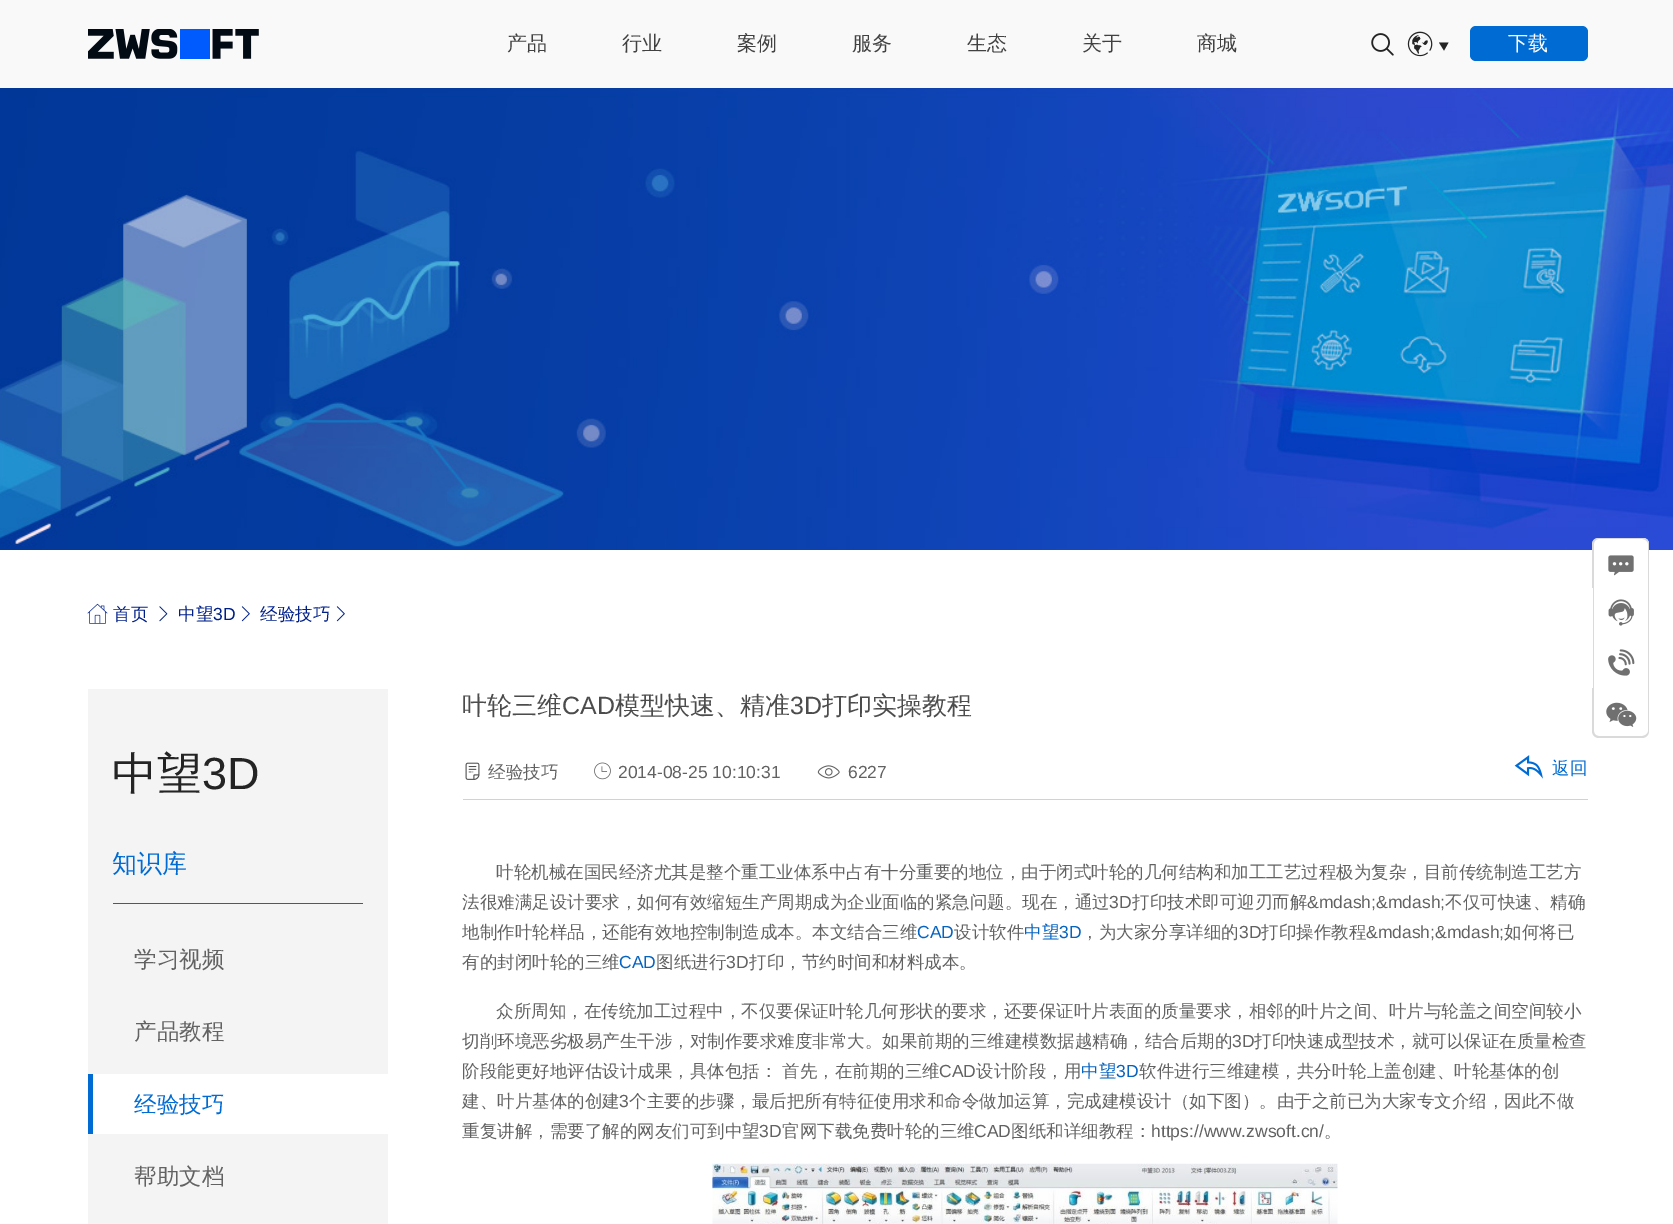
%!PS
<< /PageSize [1673 1224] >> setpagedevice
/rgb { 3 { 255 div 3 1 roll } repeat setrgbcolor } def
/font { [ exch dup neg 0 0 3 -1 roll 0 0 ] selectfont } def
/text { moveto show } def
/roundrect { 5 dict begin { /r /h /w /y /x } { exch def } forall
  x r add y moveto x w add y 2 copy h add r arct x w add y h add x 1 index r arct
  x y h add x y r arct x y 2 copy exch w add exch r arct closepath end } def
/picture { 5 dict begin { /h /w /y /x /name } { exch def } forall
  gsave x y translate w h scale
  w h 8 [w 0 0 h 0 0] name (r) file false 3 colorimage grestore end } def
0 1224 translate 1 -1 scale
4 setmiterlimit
255 255 255 rgb
0 0 1673 1224 rectfill
249 249 249 rgb
0 0 1673 88 rectfill
(img_01.rgb) 88 29 171 30 picture
(img_02.rgb) 1371 33 23 23 picture
(img_03.rgb) 1407 31 26 26 picture
36 36 36 rgb
1444 50.5 moveto -5 -8 rlineto 9.5 0 rlineto closepath fill
0 107 211 rgb
1470 26 118 35 6 roundrect fill
(img_04.rgb) 0 88 1673 462 picture
(img_05.rgb) 87 603 21 21 picture
(img_06.rgb) 159 606 9 16 picture
(img_07.rgb) 241 606 9 16 picture
(img_07.rgb) 336 606 9 16 picture
244 244 244 rgb
88 689 300 535 rectfill
0 107 211 rgb
113 903 250 1 rectfill
255 255 255 rgb
93 1074 295 60 rectfill
0 107 211 rgb
88 1074 5 60 rectfill
210 210 210 rgb
463 799 1125 1 rectfill
(img_08.rgb) 465 762 15 18 picture
(img_09.rgb) 594 762 17 18 picture
(img_10.rgb) 817 765 23 14 picture
(img_11.rgb) 1514 755 29 24 picture
(img_12.rgb) 712 1163 626 61 picture
255 255 255 rgb
1599 538 moveto 44 0 rlineto 3.5 0 6 2.5 6 6 rcurveto 0 44 rlineto -56 0 rlineto 0 -44 rlineto 0 -3.5 2.5 -6 6 -6 rcurveto closepath fill
218 218 218 rgb
1599 538 moveto 43 0 rlineto 4 0 7 2 7 6 rcurveto 0 44 rlineto -57 0 rlineto 0 -44 rlineto 0 -4 3 -6 7 -6 rcurveto closepath 1599 539 moveto 43 0 rlineto 3 0 6 2 6 5 rcurveto 0 44 rlineto -54 0 rlineto 0 -44 rlineto 0 -3 2 -5 5 -5 rcurveto closepath eofill
(img_13.rgb) 1608 555 26 21 picture
1648 588 1 100 rectfill
1593 588 1 100 rectfill
(img_14.rgb) 1608 599 26 27 picture
(img_15.rgb) 1608 649 27 27 picture
1592 688 moveto 57 0 rlineto 0 43 rlineto 0 4 -3 7 -7 7 rcurveto -43 0 rlineto -4 0 -7 -3 -7 -7 rcurveto closepath 1594 688 moveto 54 0 rlineto 0 43 rlineto 0 3 -3 5 -6 5 rcurveto -43 0 rlineto -3 0 -5 -2 -5 -5 rcurveto closepath eofill
(img_16.rgb) 1606 702 31 25 picture
/WenQuanYiZenHei-Medium 20 font
65 65 65 rgb
(产品) 507 50 text
(行业) 622 50 text
(案例) 737 50 text
(服务) 852 50 text
(生态) 967 50 text
(关于) 1082 50 text
(商城) 1197 50 text
255 255 255 rgb
(下载) 1508 50 text
/WenQuanYiZenHei-Medium 17.5 font
0 32 136 rgb
(首页) 113 620 text
(中望) 178 620 text
/LiberationSans-Regular 17.5 font
(3D) 213 620 text
/WenQuanYiZenHei-Medium 17.5 font
(经验技巧) 260 620 text
/WenQuanYiZenHei-Medium 45 font
36 36 36 rgb
(中望) 112 789 text
/LiberationSans-Regular 45 font
(3D) 202 789 text
/WenQuanYiZenHei-Medium 25 font
0 107 211 rgb
(知识库) 112 872 text
/WenQuanYiZenHei-Medium 22.5 font
98 98 98 rgb
(学习视频) 134 967 text
(产品教程) 134 1039 text
0 107 211 rgb
(经验技巧) 134 1112 text
98 98 98 rgb
(帮助文档) 134 1184 text
/WenQuanYiZenHei-Medium 25 font
76 76 76 rgb
(叶轮三维) 462 714 text
/LiberationSans-Regular 25 font
(CAD) 562 714 text
/WenQuanYiZenHei-Medium 25 font
(模型快速、精准) 615 714 text
/LiberationSans-Regular 25 font
(3D) 790 714 text
/WenQuanYiZenHei-Medium 25 font
(打印实操教程) 822 714 text
/WenQuanYiZenHei-Medium 17.5 font
98 98 98 rgb
(经验技巧) 488 778 text
/LiberationSans-Regular 17.5 font
(2014-08-25 10:10:31) 618 778 text
(6227) 848 778 text
/WenQuanYiZenHei-Medium 17.5 font
0 107 211 rgb
(返回) 1552 774 text
98 98 98 rgb
(叶轮机械在国民经济尤其是整个重工业体系中占有十分重要的地位，由于闭式叶轮的几何结构和加工工艺过程极为复杂，目前传统制造工艺方) 496 878 text
(法很难满足设计要求，如何有效缩短生产周期成为企业面临的紧急问题。现在，通过) 462 908 text
/LiberationSans-Regular 17.5 font
(3D) 1109 908 text
/WenQuanYiZenHei-Medium 17.5 font
(打印技术即可迎刃而解) 1132 908 text
/LiberationSans-Regular 17.5 font
(&mdash;&mdash;) 1307 908 text
/WenQuanYiZenHei-Medium 17.5 font
(不仅可快速、精确) 1445 908 text
(地制作叶轮样品，还能有效地控制制造成本。本文结合三维) 462 938 text
/LiberationSans-Regular 17.5 font
5 99 193 rgb
(CAD) 917 938 text
/WenQuanYiZenHei-Medium 17.5 font
98 98 98 rgb
(设计软件) 954 938 text
5 99 193 rgb
(中望) 1024 938 text
/LiberationSans-Regular 17.5 font
(3D) 1059 938 text
/WenQuanYiZenHei-Medium 17.5 font
98 98 98 rgb
(，为大家分享详细的) 1081 938 text
/LiberationSans-Regular 17.5 font
(3D) 1239 938 text
/WenQuanYiZenHei-Medium 17.5 font
(打印操作教程) 1261 938 text
/LiberationSans-Regular 17.5 font
(&mdash;&mdash;) 1366 938 text
/WenQuanYiZenHei-Medium 17.5 font
(如何将已) 1504 938 text
(有的封闭叶轮的三维) 462 968 text
/LiberationSans-Regular 17.5 font
5 99 193 rgb
(CAD) 619 968 text
/WenQuanYiZenHei-Medium 17.5 font
98 98 98 rgb
(图纸进行) 656 968 text
/LiberationSans-Regular 17.5 font
(3D) 726 968 text
/WenQuanYiZenHei-Medium 17.5 font
(打印，节约时间和材料成本。) 749 968 text
(众所周知，在传统加工过程中，不仅要保证叶轮几何形状的要求，还要保证叶片表面的质量要求，相邻的叶片之间、叶片与轮盖之间空间较小) 496 1017 text
(切削环境恶劣极易产生干涉，对制作要求难度非常大。如果前期的三维建模数据越精确，结合后期的) 462 1047 text
/LiberationSans-Regular 17.5 font
(3D) 1232 1047 text
/WenQuanYiZenHei-Medium 17.5 font
(打印快速成型技术，就可以保证在质量检查) 1254 1047 text
(阶段能更好地评估设计成果，具体包括： 首先，在前期的三维) 462 1077 text
/LiberationSans-Regular 17.5 font
(CAD) 939 1077 text
/WenQuanYiZenHei-Medium 17.5 font
(设计阶段，用) 976 1077 text
5 99 193 rgb
(中望) 1081 1077 text
/LiberationSans-Regular 17.5 font
(3D) 1116 1077 text
/WenQuanYiZenHei-Medium 17.5 font
98 98 98 rgb
(软件进行三维建模，共分叶轮上盖创建、叶轮基体的创) 1139 1077 text
(建、叶片基体的创建) 462 1107 text
/LiberationSans-Regular 17.5 font
(3) 619 1107 text
/WenQuanYiZenHei-Medium 17.5 font
(个主要的步骤，最后把所有特征使用求和命令做加运算，完成建模设计（如下图）。由于之前已为大家专文介绍，因此不做) 629 1107 text
(重复讲解，需要了解的网友们可到中望) 462 1137 text
/LiberationSans-Regular 17.5 font
(3D) 759 1137 text
/WenQuanYiZenHei-Medium 17.5 font
(官网下载免费叶轮的三维) 782 1137 text
/LiberationSans-Regular 17.5 font
(CAD) 974 1137 text
/WenQuanYiZenHei-Medium 17.5 font
(图纸和详细教程：) 1011 1137 text
/LiberationSans-Regular 17.5 font
(https://www.zwsoft.cn/) 1151 1137 text
/WenQuanYiZenHei-Medium 17.5 font
(。) 1324 1137 text
showpage
